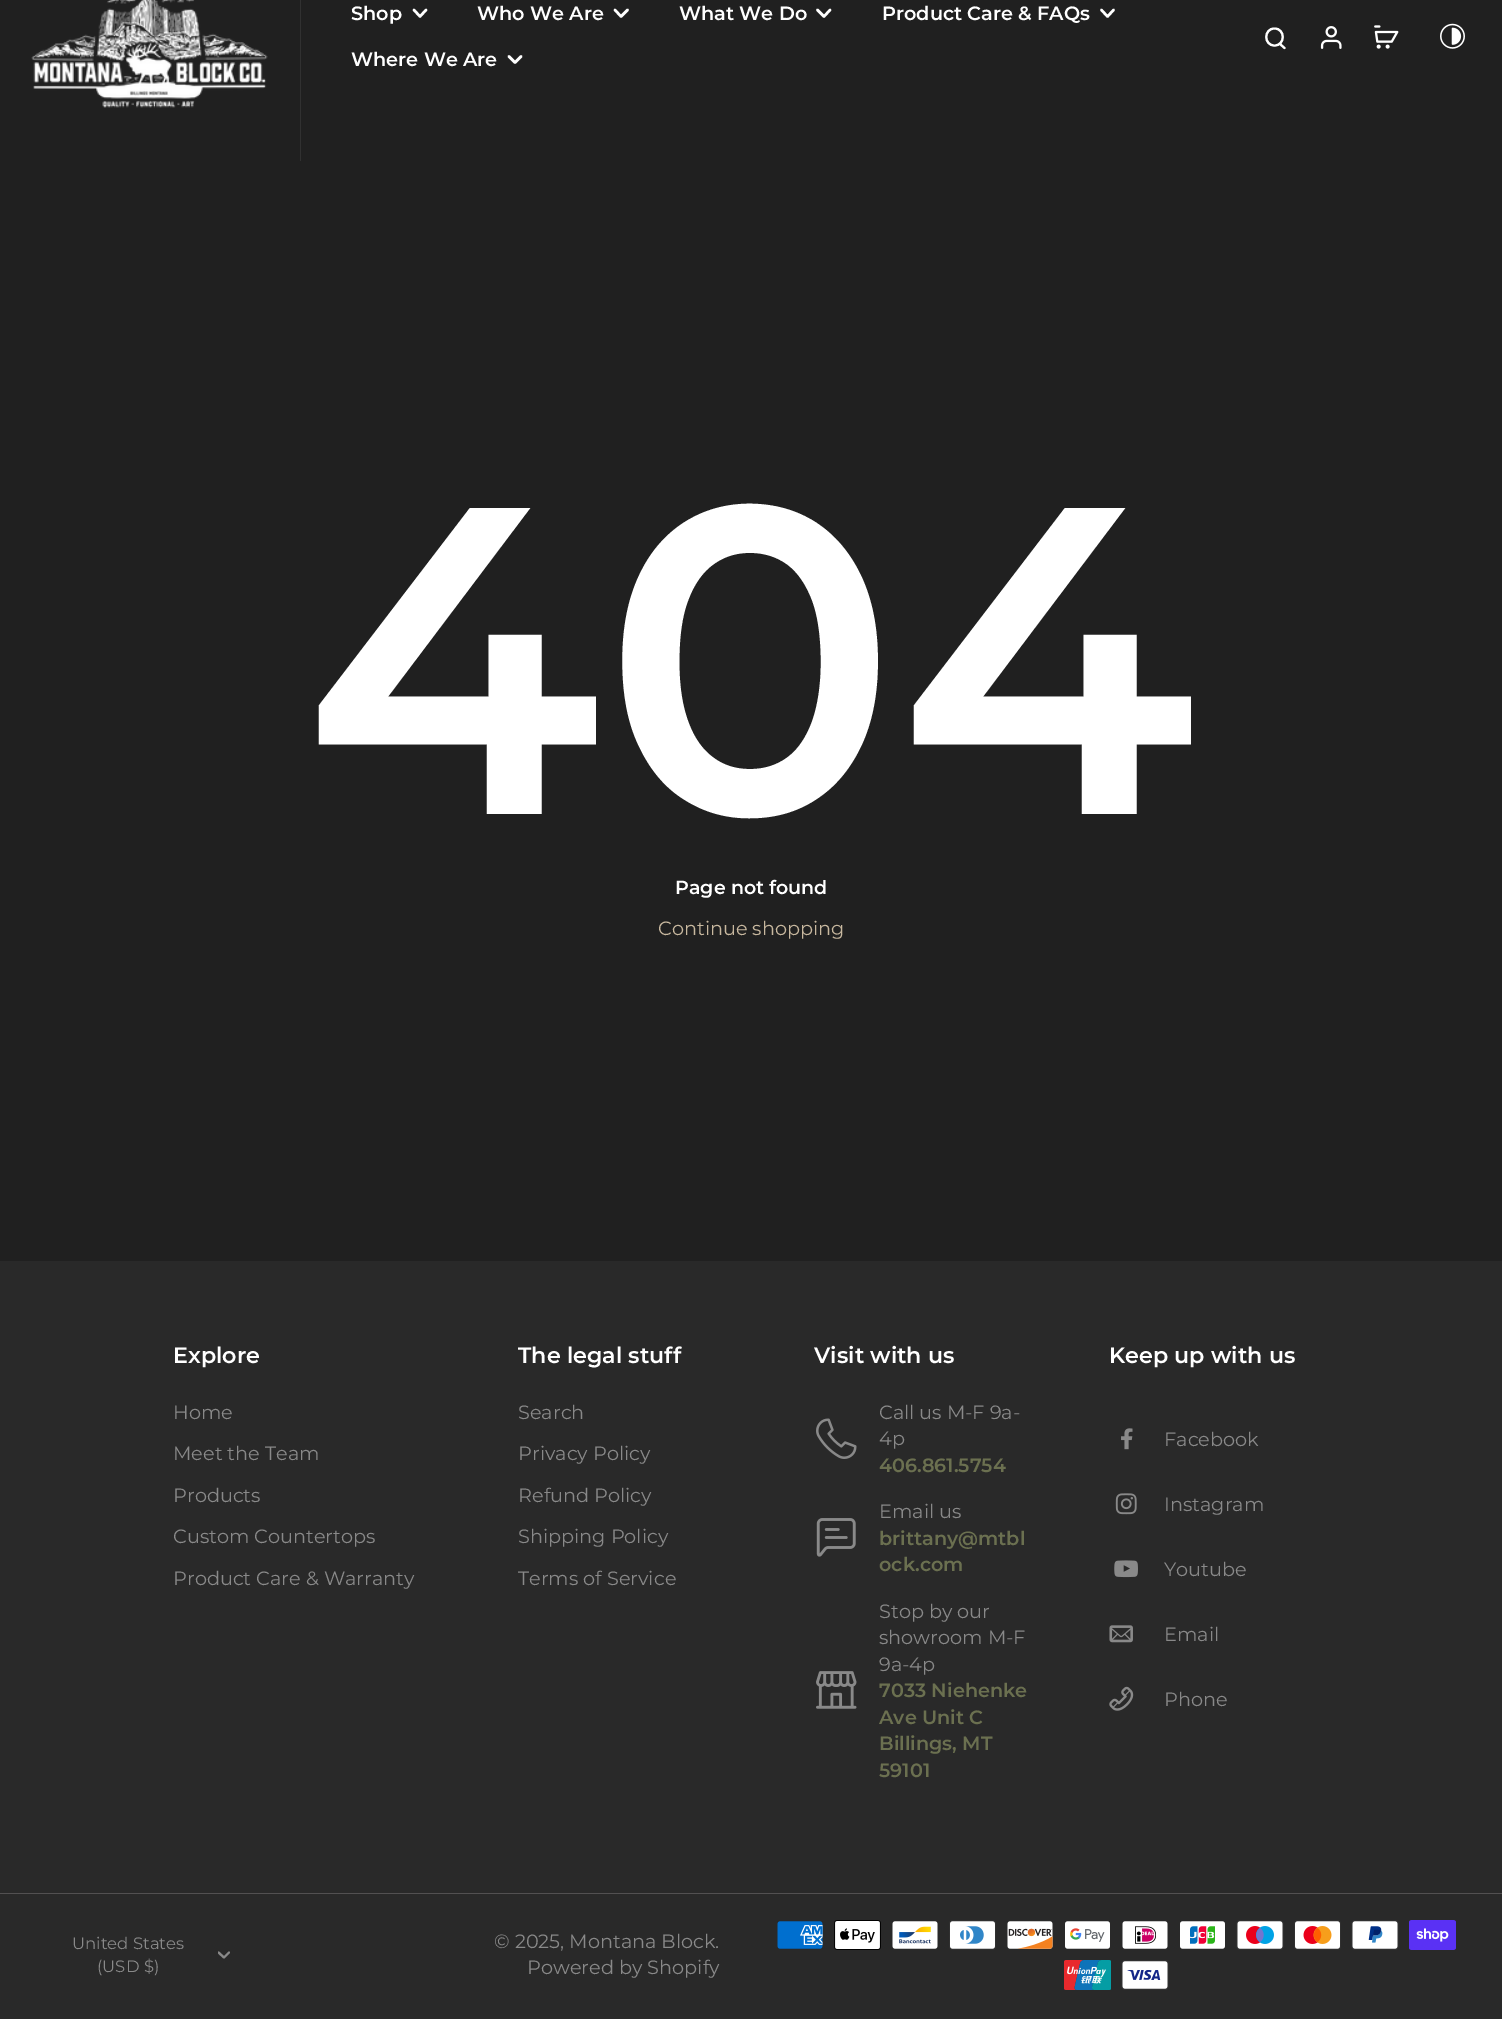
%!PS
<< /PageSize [1502 2019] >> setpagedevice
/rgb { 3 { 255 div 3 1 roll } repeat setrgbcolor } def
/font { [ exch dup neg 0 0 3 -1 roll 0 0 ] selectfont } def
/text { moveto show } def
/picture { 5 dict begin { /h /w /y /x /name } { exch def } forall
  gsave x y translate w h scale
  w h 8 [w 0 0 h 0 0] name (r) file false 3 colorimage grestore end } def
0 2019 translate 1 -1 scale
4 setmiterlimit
32 32 32 rgb
0 0 1502 2019 rectfill
49 49 49 rgb
300 0 1 161 rectfill
(img_01.rgb) 31 0 237 108 picture
255 255 255 rgb
2.5 setlinewidth
1 setlinecap
1 setlinejoin
414 10 moveto 6 6.5 rlineto 6 -6.5 rlineto stroke
615 10 moveto 6 6.5 rlineto 6.5 -6.5 rlineto stroke
817.5 10 moveto 6.5 6.5 rlineto 6 -6.5 rlineto stroke
1101.5 10 moveto 6 6.5 rlineto 6 -6.5 rlineto stroke
509 56.5 moveto 6 6 rlineto 6 -6 rlineto stroke
2.1 setlinewidth
0 setlinecap
0 setlinejoin
1274.5 45.5 moveto 11 0 11 -17 0 -17 rcurveto -11 0 -11 17 0 17 rcurveto closepath stroke
1 setlinecap
1280 44 moveto 4.5 4 rlineto stroke
(img_02.rgb) 1320 26 22 23 picture
(img_03.rgb) 1374 25 25 24 picture
(img_04.rgb) 1440 23 25 26 picture
41 41 41 rgb
0 1261 1502 758 rectfill
82 80 81 rgb
0 1893 1502 1 rectfill
(img_05.rgb) 816 1418 41 41 picture
(img_06.rgb) 816 1518 40 39 picture
(img_07.rgb) 816 1671 41 38 picture
(img_08.rgb) 1121 1428 12 22 picture
(img_09.rgb) 1115 1493 22 22 picture
(img_10.rgb) 1114 1560 24 18 picture
(img_11.rgb) 1109 1625 24 18 picture
(img_12.rgb) 1109 1686 25 25 picture
gsave
218 1949 12 12 rectclip
137 137 137 rgb
1 setlinejoin
218.5 1952.5 moveto 5.5 5 rlineto 5 -5 rlineto stroke
grestore
(img_13.rgb) 777 1921 46 28 picture
(img_14.rgb) 834 1920 47 30 picture
(img_15.rgb) 892 1921 46 28 picture
(img_16.rgb) 949 1920 47 30 picture
(img_17.rgb) 1007 1921 46 28 picture
(img_18.rgb) 1065 1921 45 28 picture
(img_19.rgb) 1122 1921 46 28 picture
(img_20.rgb) 1180 1921 45 28 picture
(img_21.rgb) 1236 1920 48 30 picture
(img_22.rgb) 1294 1920 47 30 picture
(img_23.rgb) 1351 1920 48 30 picture
(img_24.rgb) 1409 1920 47 30 picture
(img_25.rgb) 1064 1960 47 30 picture
(img_26.rgb) 1121 1960 48 30 picture
/Montserrat-SemiBold 19.25 font
255 255 255 rgb
(Shop) 351 20 text
(Who We Are) 477 20 text
(What We Do) 679 20 text
(Product Care & FAQs) 882 20 text
(Where We Are) 351 66 text
/Montserrat-SemiBold 440 font
(404) 304 814 text
/Montserrat-SemiBold 19 font
(Page not found) 675 894 text
/Montserrat-Regular 19.25 font
200 184 159 rgb
(Continue shopping) 658 935 text
/Montserrat-SemiBold 22.25 font
255 255 255 rgb
(Explore) 173 1363 text
/Montserrat-Regular 19.25 font
137 137 137 rgb
(Home) 173 1419 text
(Meet the Team) 173 1460 text
(Products) 173 1502 text
(Custom Countertops) 173 1543 text
(Product Care & Warranty) 173 1585 text
/Montserrat-SemiBold 22.25 font
255 255 255 rgb
(The legal stuff) 518 1363 text
/Montserrat-Regular 19.25 font
137 137 137 rgb
(Search) 518 1419 text
(Privacy Policy) 518 1460 text
(Refund Policy) 518 1502 text
(Shipping Policy) 518 1543 text
(Terms of Service) 518 1585 text
/Montserrat-SemiBold 22.25 font
255 255 255 rgb
(Visit with us) 814 1363 text
/Montserrat-Regular 19.25 font
137 137 137 rgb
(Call us M-F 9a-) 879 1419 text
(4p) 879 1445 text
/Montserrat-SemiBold 19.25 font
107 112 80 rgb
(406.861.5754) 879 1472 text
/Montserrat-Regular 19.25 font
137 137 137 rgb
(Email us) 879 1518 text
/Montserrat-SemiBold 19.25 font
107 112 80 rgb
(brittany@mtbl) 879 1545 text
(ock.com) 879 1571 text
/Montserrat-Regular 19.25 font
137 137 137 rgb
(Stop by our) 879 1618 text
(showroom M-F) 879 1644 text
(9a-4p) 879 1671 text
/Montserrat-SemiBold 19.25 font
107 112 80 rgb
(7033 Niehenke) 879 1697 text
(Ave Unit C) 879 1724 text
(Billings, MT) 879 1750 text
(59101) 879 1777 text
/Montserrat-SemiBold 22.25 font
255 255 255 rgb
(Keep up with us) 1109 1363 text
/Montserrat-Regular 19.25 font
137 137 137 rgb
(Facebook) 1164 1446 text
(Instagram) 1164 1511 text
(Youtube) 1164 1576 text
(Email) 1164 1641 text
(Phone) 1164 1706 text
/Montserrat-Regular 16.5 font
(United States) 72 1949 text
(\(USD $\)) 97 1972 text
/Montserrat-Regular 19.25 font
(© 2025, Montana Block) 494 1948 text
(.) 715 1948 text
(Powered by Shopify) 527 1974 text
showpage
